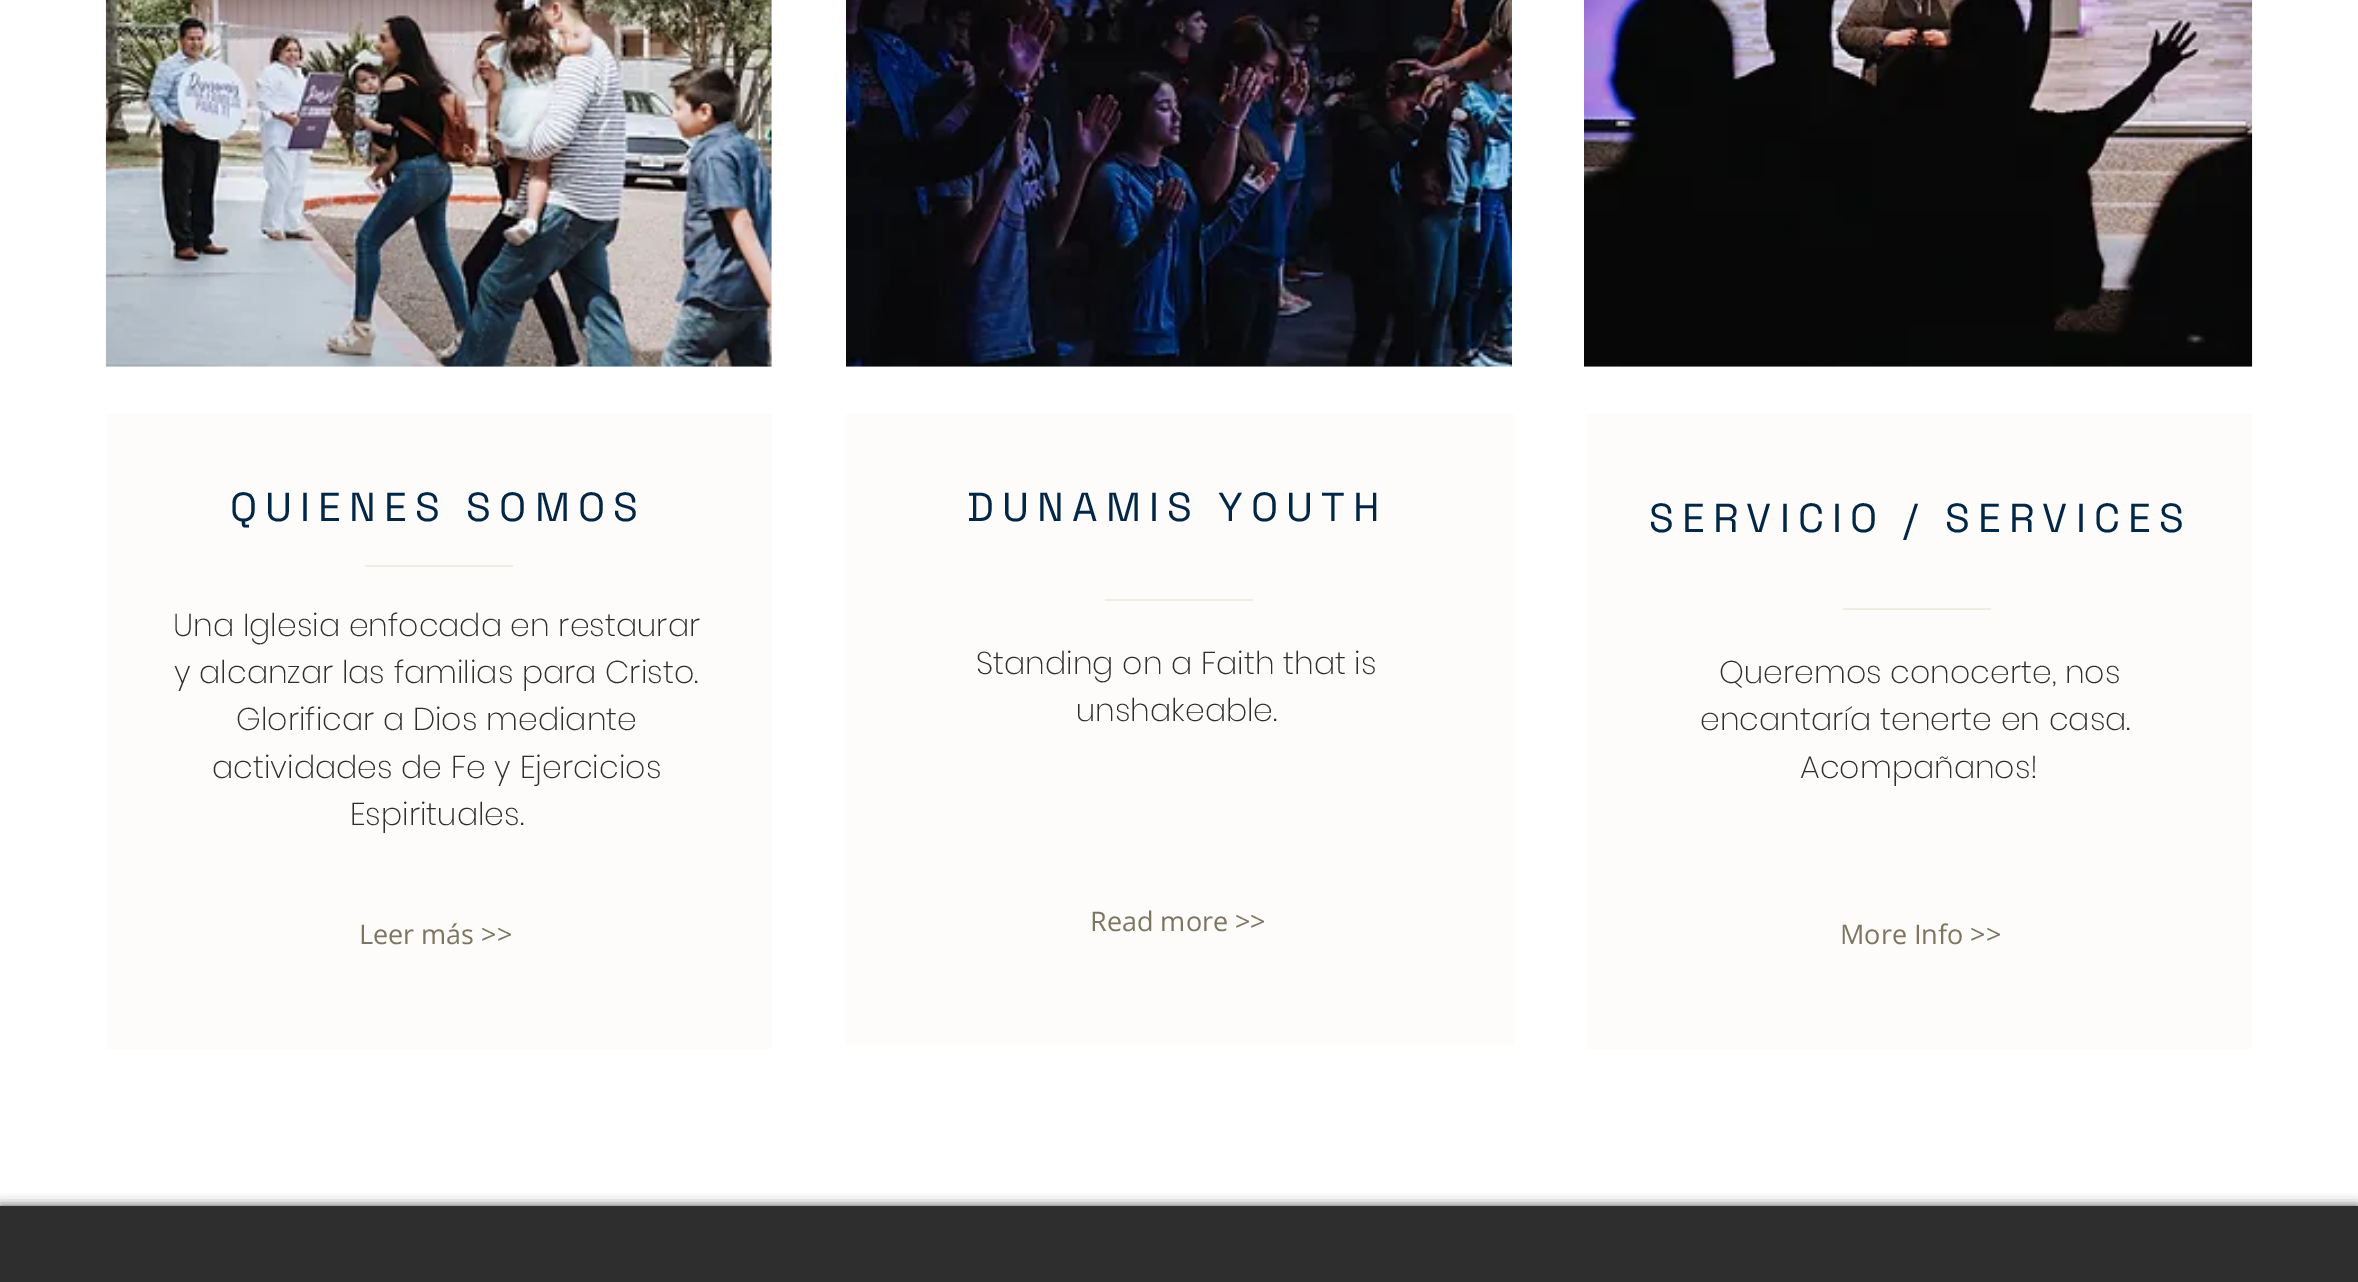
%!PS
<< /PageSize [2358 1282] /PageUsesTransparency true >> setpagedevice
/rgb { 3 { 255 div 3 1 roll } repeat setrgbcolor } def
/font { [ exch dup neg 0 0 3 -1 roll 0 0 ] selectfont } def
/text { moveto show } def
/alpha { dup .setfillconstantalpha .setstrokeconstantalpha } def
/roundrect { 5 dict begin { /r /h /w /y /x } { exch def } forall
  x r add y moveto x w add y 2 copy h add r arct x w add y h add x 1 index r arct
  x y h add x y r arct x y 2 copy exch w add exch r arct closepath end } def
/shadow { 12 dict begin { /a /b /q /h /w /y /x } { exch def } forall gsave /was 0 def
  9 -2 -9 { dup b mul 4 div /e exch def 1 sub .425 mul 2.718 exch exp 1 add a .99 .min exch div /now exch def
    1 1 now sub 1 was sub div sub alpha /was now def
    w h .min e 2 mul add 0 gt { x e sub y e sub w e 2 mul add h e 2 mul add
      q e add b .6 mul add w h .min 2 div e add .min 0 .max roundrect fill } if } for grestore end } def
/picture { 5 dict begin { /h /w /y /x /name } { exch def } forall
  gsave x y translate w h scale
  w h 8 [w 0 0 h 0 0] name (r) file false 3 colorimage grestore end } def
0 .pushpdf14devicefilter
0 1282 translate 1 -1 scale
4 setmiterlimit
255 255 255 rgb
0 0 2358 1282 rectfill
(img_01.rgb) 105 0 667 367 picture
(img_02.rgb) 846 0 666 367 picture
(img_03.rgb) 1584 0 669 367 picture
253 252 251 rgb
106 414 666 635 rectfill
240 237 230 rgb
365 565 148 2 rectfill
253 252 251 rgb
846 414 668 632 rectfill
240 237 230 rgb
1105 599 148 2 rectfill
253 252 251 rgb
1586 414 666 635 rectfill
240 237 230 rgb
1843 608 148 2 rectfill
0 0 0 rgb
0 1206 2358 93 0 5.5 0.7 shadow
47 46 46 rgb
0 1206 2358 76 rectfill
/SpaceGrotesk-Regular 40.5 font
1 38 70 rgb
230 521 moveto 8.1 0 (QUIENES SOMOS) ashow
/Poppins-ExtraLight 31.5 font
47 46 46 rgb
(Una Iglesia enfocada en restaurar) 173 636 text
(y alcanzar las familias para Cristo.) 174 683 text
(Glorificar a Dios mediante) 236 730 text
(actividades de Fe y Ejercicios) 212 778 text
(Espirituales.) 350 825 text
/OpenSans-Regular 27 font
125 117 96 rgb
(Leer más >>) 359 944 text
/SpaceGrotesk-Regular 40.5 font
1 38 70 rgb
967 521 moveto 8.1 0 (DUNAMIS YOUTH) ashow
/Poppins-ExtraLight 31.5 font
47 46 46 rgb
(Standing on a Faith that is) 976 674 text
(unshakeable.) 1076 721 text
/OpenSans-Regular 27 font
125 117 96 rgb
(Read more >>) 1090 931 text
/SpaceGrotesk-Regular 40.5 font
1 38 70 rgb
1649 532 moveto 8.1 0 (SERVICIO / SERVICES) ashow
/Poppins-ExtraLight 31.5 font
47 46 46 rgb
(Queremos conocerte, nos) 1719 683 text
(encantaría tenerte en casa.) 1700 730 text
(Acompañanos!) 1800 778 text
/OpenSans-Regular 27 font
125 117 96 rgb
(More Info >>) 1840 944 text
.poppdf14devicefilter showpage
